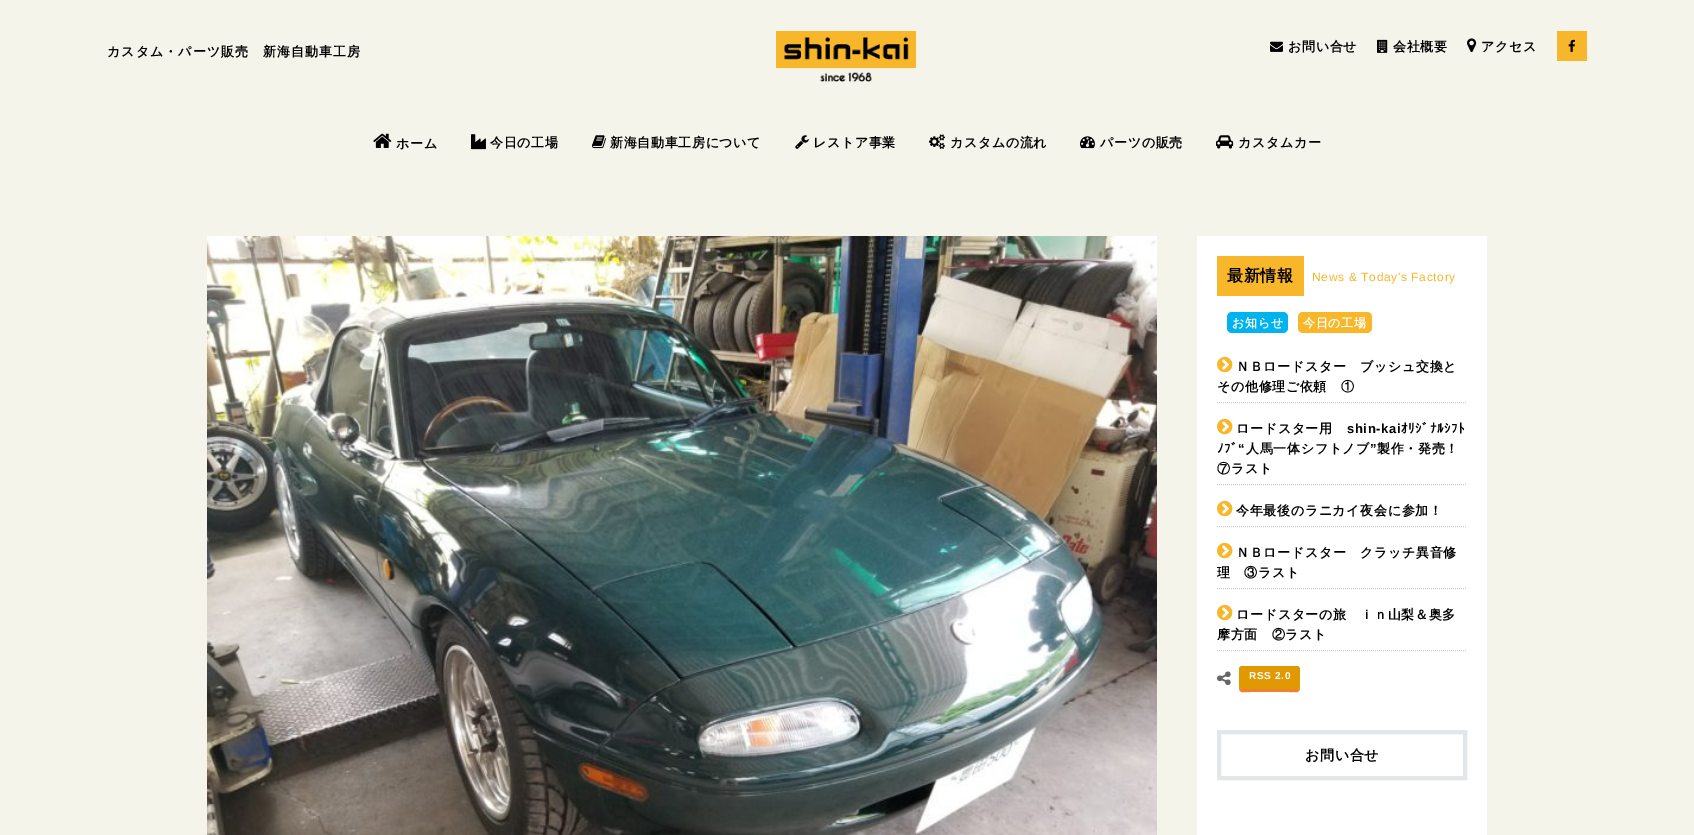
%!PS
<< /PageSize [1694 835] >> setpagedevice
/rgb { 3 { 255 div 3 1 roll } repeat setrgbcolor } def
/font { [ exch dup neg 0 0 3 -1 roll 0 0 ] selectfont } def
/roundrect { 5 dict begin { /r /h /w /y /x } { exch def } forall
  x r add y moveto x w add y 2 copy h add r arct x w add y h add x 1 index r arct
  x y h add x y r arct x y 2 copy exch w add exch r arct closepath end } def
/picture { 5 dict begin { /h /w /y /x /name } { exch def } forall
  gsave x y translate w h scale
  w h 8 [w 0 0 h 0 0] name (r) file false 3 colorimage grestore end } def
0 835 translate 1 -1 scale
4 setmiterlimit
244 244 234 rgb
0 0 1694 835 rectfill
(img_01.rgb) 776 31 140 51 picture
(img_02.rgb) 1270 41 13 11 picture
(img_03.rgb) 1377 39 11 14 picture
(img_04.rgb) 1467 38 10 15 picture
248 182 43 rgb
1557 31 30 30 rectfill
(img_05.rgb) 1568 39 7 13 picture
(img_06.rgb) 373 133 19 15 picture
(img_07.rgb) 471 134 15 16 picture
(img_08.rgb) 592 135 14 14 picture
(img_09.rgb) 795 135 14 14 picture
(img_10.rgb) 929 134 16 15 picture
(img_11.rgb) 1080 136 15 13 picture
(img_12.rgb) 1216 135 18 14 picture
(img_13.rgb) 207 236 950 599 picture
255 255 255 rgb
1197 236 290 599 rectfill
248 182 43 rgb
1217 256 87 40 rectfill
0 178 237 rgb
1227 312 61 21 5 roundrect fill
248 182 43 rgb
1298 312 74 21 5 roundrect fill
204 204 204 rgb
[1 1] 0 setdash
1217 402.5 moveto 250 0 rlineto stroke
(img_14.rgb) 1217 356 16 17 picture
1217 484.5 moveto 250 0 rlineto stroke
(img_14.rgb) 1217 418 16 17 picture
1217 526.5 moveto 250 0 rlineto stroke
(img_14.rgb) 1217 500 16 17 picture
1217 588.5 moveto 250 0 rlineto stroke
(img_14.rgb) 1217 542 16 17 picture
1217 650.5 moveto 250 0 rlineto stroke
(img_14.rgb) 1217 604 16 17 picture
(img_15.rgb) 1217 671 14 15 picture
238 128 47 rgb
1239 686 moveto 0 8 3 6 12 6 rcurveto 37 0 rlineto 9 0 12 2 12 -6 rcurveto 0 2 -1 3 -3 3 rcurveto -55 0 rlineto -2 0 -3 -1 -3 -3 rcurveto closepath fill
224 153 0 rgb
1239 666 61 23 3 roundrect fill
226 230 232 rgb
4 setlinewidth
[] 0 setdash
1219 732 246 46 rectstroke
/WenQuanYiZenHei-Bold 13 font
0 0 0 rgb
107 56 moveto 1 0 (カスタム・パーツ販売　新海自動車工房) ashow
1288 51 moveto 0.65 0 (お問い合せ) ashow
1393 51 moveto 0.65 0 (会社概要) ashow
1481 51 moveto 0.65 0 (アクセス) ashow
396 148 moveto 0.65 0 (ホーム) ashow
490 147 moveto 0.65 0 (今日の工場) ashow
610 147 moveto 0.65 0 (新海自動車工房について) ashow
813 147 moveto 0.65 0 (レストア事業) ashow
950 147 moveto 0.65 0 (カスタムの流れ) ashow
1100 147 moveto 0.65 0 (パーツの販売) ashow
1238 147 moveto 0.65 0 (カスタムカー) ashow
/WenQuanYiZenHei-Bold 16 font
1227 281 moveto 0.65 0 (最新情報) ashow
/LiberationSans-Regular 12 font
248 182 43 rgb
1312 281 moveto 0.65 0 (News & Today's Factory) ashow
/WenQuanYiZenHei-Bold 12 font
255 255 255 rgb
1232 327 moveto 0.65 0 (お知らせ) ashow
1303 327 moveto 0.65 0 (今日の工場) ashow
/WenQuanYiZenHei-Bold 13 font
0 0 0 rgb
1236 371 moveto 0.65 0 (ＮＢロードスター　ブッシュ交換と) ashow
1217 391 moveto 0.65 0 (その他修理ご依頼　①) ashow
1236 433 moveto 0.65 0 (ロードスター用) ashow
/LiberationSans-Bold 13 font
1347 433 moveto 0.65 0 (shin-kai) ashow
/IPAPGothic-Bold 13 font
1401 433 moveto 0.65 0 (ｵﾘｼﾞﾅﾙｼﾌﾄ) ashow
1217 453 moveto 0.65 0 (ﾉﾌﾞ) ashow
/LiberationSans-Bold 13 font
1238 453 moveto 0.65 0 (“) ashow
/WenQuanYiZenHei-Bold 13 font
1246 453 moveto 0.65 0 (人馬一体シフトノブ) ashow
/LiberationSans-Bold 13 font
1370 453 moveto 0.65 0 (”) ashow
/WenQuanYiZenHei-Bold 13 font
1377 453 moveto 0.65 0 (製作・発売！) ashow
1217 473 moveto 0.65 0 (⑦ラスト) ashow
1236 515 moveto 0.65 0 (今年最後のラニカイ夜会に参加！) ashow
1236 557 moveto 0.65 0 (ＮＢロードスター　クラッチ異音修) ashow
1217 577 moveto 0.65 0 (理　③ラスト) ashow
1236 619 moveto 0.65 0 (ロードスターの旅　ｉｎ山梨＆奥多) ashow
1217 639 moveto 0.65 0 (摩方面　②ラスト) ashow
/LiberationSans-Bold 10 font
255 255 255 rgb
1249 679 moveto 0.65 0 (RSS 2.0) ashow
/WenQuanYiZenHei-Bold 14 font
0 0 0 rgb
1305 760 moveto 0.65 0 (お問い合せ) ashow
showpage
